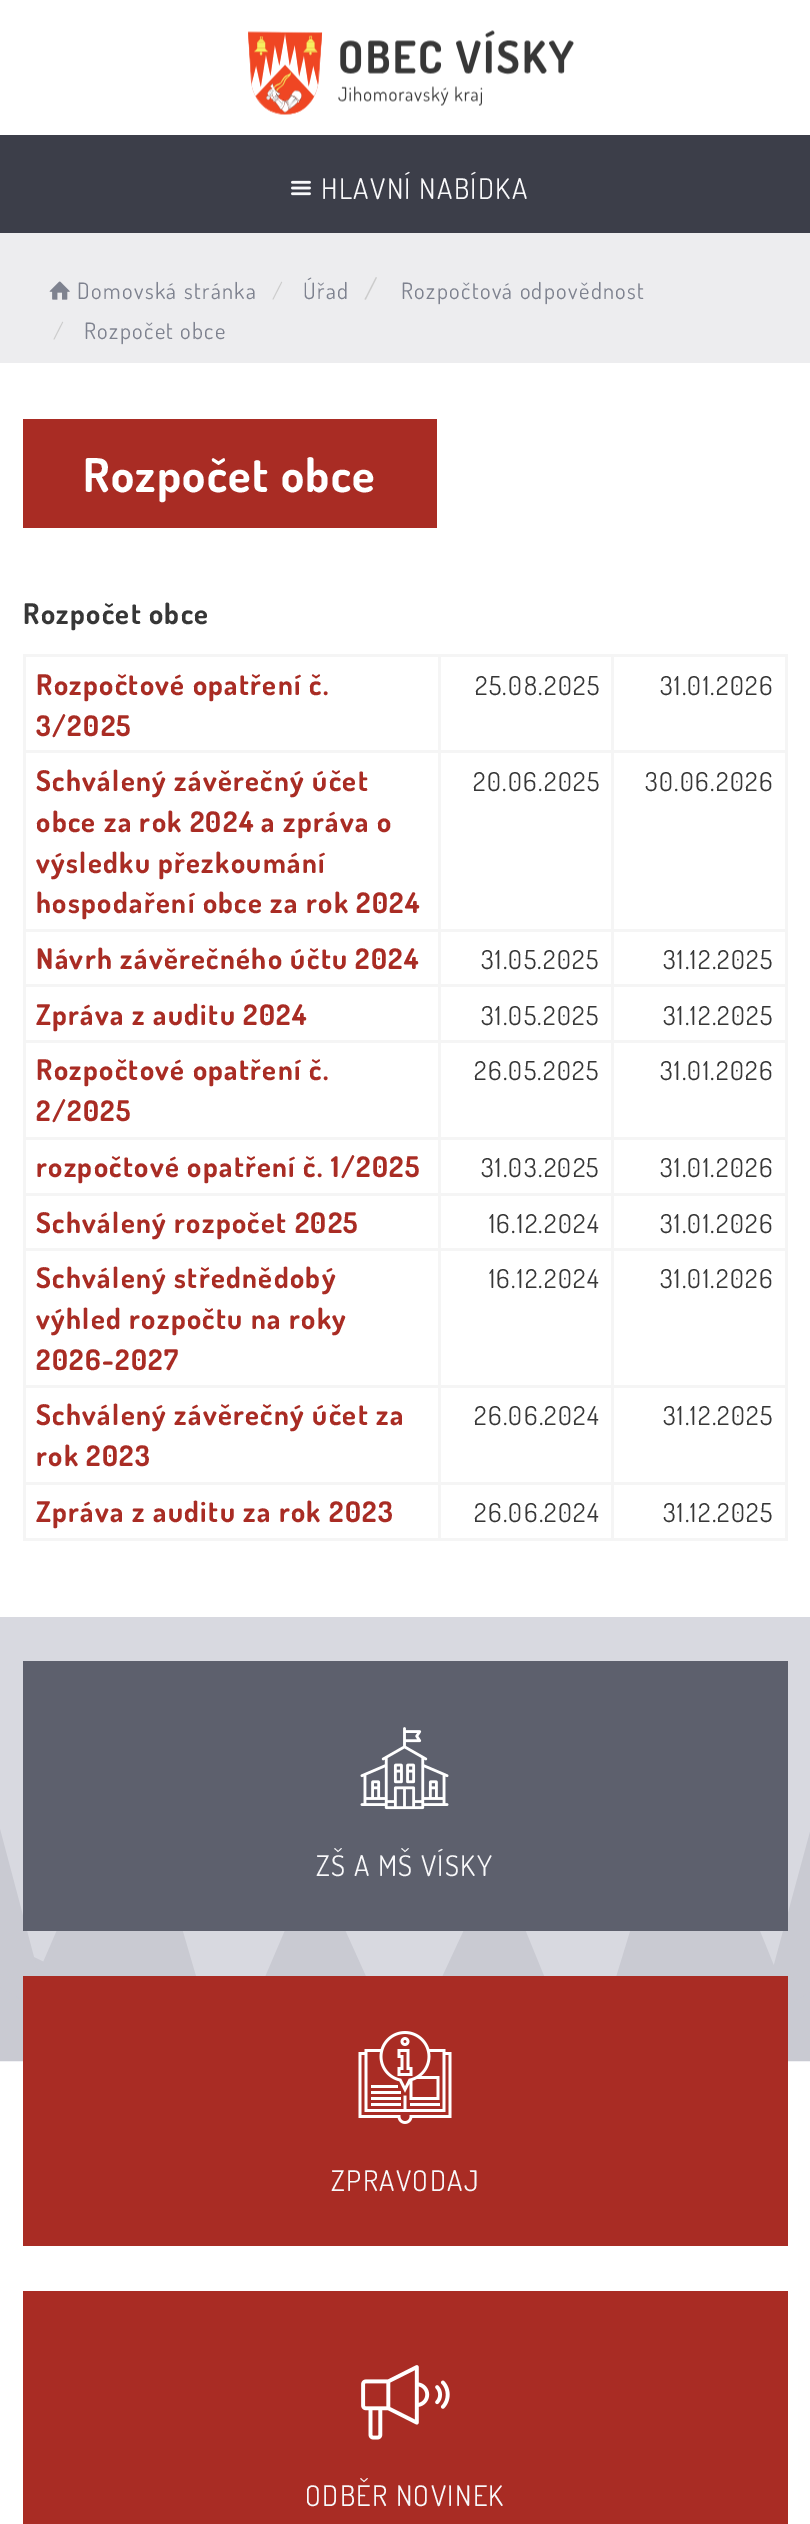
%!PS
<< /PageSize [810 2524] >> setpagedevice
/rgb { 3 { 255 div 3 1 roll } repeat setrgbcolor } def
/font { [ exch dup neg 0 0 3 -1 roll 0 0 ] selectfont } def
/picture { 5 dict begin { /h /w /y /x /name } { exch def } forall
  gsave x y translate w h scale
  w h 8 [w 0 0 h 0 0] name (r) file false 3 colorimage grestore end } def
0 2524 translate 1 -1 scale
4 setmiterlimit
255 255 255 rgb
0 0 810 2524 rectfill
60 62 73 rgb
0 135 810 98 rectfill
(img_01.rgb) 248 30 326 85 picture
(img_02.rgb) 291 180 20 16 picture
237 237 239 rgb
0 233 810 130 rectfill
(img_03.rgb) 49 281 21 19 picture
169 44 36 rgb
23 419 414 109 rectfill
245 245 245 rgb
785 654 3 887 rectfill
23 1538 765 3 rectfill
611 654 175 3 rectfill
611 654 3 98 rectfill
438 654 176 3 rectfill
438 654 3 98 rectfill
23 654 418 3 rectfill
23 654 3 98 rectfill
611 750 175 3 rectfill
611 750 3 180 rectfill
438 750 176 3 rectfill
438 750 3 180 rectfill
23 750 418 3 rectfill
23 750 3 180 rectfill
611 929 175 3 rectfill
611 929 3 57 rectfill
438 929 176 3 rectfill
438 929 3 57 rectfill
23 929 418 3 rectfill
23 929 3 57 rectfill
611 984 175 3 rectfill
611 984 3 57 rectfill
438 984 176 3 rectfill
438 984 3 57 rectfill
23 984 418 3 rectfill
23 984 3 57 rectfill
611 1040 175 3 rectfill
611 1040 3 99 rectfill
438 1040 176 3 rectfill
438 1040 3 99 rectfill
23 1040 418 3 rectfill
23 1040 3 99 rectfill
611 1137 175 3 rectfill
611 1137 3 57 rectfill
438 1137 176 3 rectfill
438 1137 3 57 rectfill
23 1137 418 3 rectfill
23 1137 3 57 rectfill
611 1193 175 3 rectfill
611 1193 3 57 rectfill
438 1193 176 3 rectfill
438 1193 3 57 rectfill
23 1193 418 3 rectfill
23 1193 3 57 rectfill
611 1248 175 3 rectfill
611 1248 3 138 rectfill
438 1248 176 3 rectfill
438 1248 3 138 rectfill
23 1248 418 3 rectfill
23 1248 3 138 rectfill
611 1385 175 3 rectfill
611 1385 3 99 rectfill
438 1385 176 3 rectfill
438 1385 3 99 rectfill
23 1385 418 3 rectfill
23 1385 3 99 rectfill
611 1482 175 3 rectfill
611 1482 3 57 rectfill
438 1482 176 3 rectfill
438 1482 3 57 rectfill
23 1482 418 3 rectfill
23 1482 3 57 rectfill
(img_04.rgb) 0 1617 810 445 picture
93 96 109 rgb
23 1661 765 270 rectfill
(img_05.rgb) 360 1727 89 83 picture
169 44 36 rgb
23 1976 765 270 rectfill
(img_06.rgb) 358 2031 94 93 picture
23 2291 765 233 rectfill
(img_07.rgb) 361 2365 89 75 picture
/Dosis-Regular 28.5 font
248 248 250 rgb
321 199 moveto 1.4 0 (HLAVNÍ NABÍDKA) ashow
/Dosis-Regular 22.5 font
126 130 143 rgb
77 299 moveto 1.4 0 (Domovská stránka) ashow
204 204 204 rgb
272 299 moveto 1.4 0 (/) ashow
126 130 143 rgb
303 299 moveto 1.4 0 (Úřad) ashow
/Dosis-Regular 28.5 font
204 204 204 rgb
364 299 moveto 1.4 0 (/) ashow
/Dosis-Regular 22.5 font
126 130 143 rgb
401 299 moveto 1.4 0 (Rozpočtová odpovědnost) ashow
204 204 204 rgb
53 339 moveto 1.4 0 (/) ashow
126 130 143 rgb
84 339 moveto 1.4 0 (Rozpočet obce) ashow
/Dosis-Bold 46.5 font
255 255 255 rgb
83 492 moveto 1.4 0 (Rozpočet obce) ashow
/Dosis-Bold 28.5 font
55 55 55 rgb
23 624 moveto 1.4 0 (Rozpočet obce) ashow
169 44 36 rgb
36 695 moveto 1.4 0 (Rozpočtové opatření č.) ashow
36 736 moveto 1.4 0 (3/2025) ashow
/Dosis-Regular 26 font
55 55 55 rgb
475 695 moveto 1.4 0 (25.08.2025) ashow
660 695 moveto 1.4 0 (31.01.2026) ashow
/Dosis-Bold 28.5 font
169 44 36 rgb
36 791 moveto 1.4 0 (Schválený závěrečný účet) ashow
36 832 moveto 1.4 0 (obce za rok 2024 a zpráva o) ashow
36 873 moveto 1.4 0 (výsledku přezkoumání) ashow
36 913 moveto 1.4 0 (hospodaření obce za rok 2024) ashow
/Dosis-Regular 26 font
55 55 55 rgb
473 791 moveto 1.4 0 (20.06.2025) ashow
645 791 moveto 1.4 0 (30.06.2026) ashow
/Dosis-Bold 28.5 font
169 44 36 rgb
36 969 moveto 1.4 0 (Návrh závěrečného účtu 2024) ashow
/Dosis-Regular 26 font
55 55 55 rgb
481 969 moveto 1.4 0 (31.05.2025) ashow
663 969 moveto 1.4 0 (31.12.2025) ashow
/Dosis-Bold 28.5 font
169 44 36 rgb
36 1025 moveto 1.4 0 (Zpráva z auditu 2024) ashow
/Dosis-Regular 26 font
55 55 55 rgb
481 1025 moveto 1.4 0 (31.05.2025) ashow
663 1025 moveto 1.4 0 (31.12.2025) ashow
/Dosis-Bold 28.5 font
169 44 36 rgb
36 1080 moveto 1.4 0 (Rozpočtové opatření č.) ashow
36 1121 moveto 1.4 0 (2/2025) ashow
/Dosis-Regular 26 font
55 55 55 rgb
474 1080 moveto 1.4 0 (26.05.2025) ashow
660 1080 moveto 1.4 0 (31.01.2026) ashow
/Dosis-Bold 28.5 font
169 44 36 rgb
36 1177 moveto 1.4 0 (rozpočtové opatření č. 1/2025) ashow
/Dosis-Regular 26 font
55 55 55 rgb
481 1177 moveto 1.4 0 (31.03.2025) ashow
660 1177 moveto 1.4 0 (31.01.2026) ashow
/Dosis-Bold 28.5 font
169 44 36 rgb
36 1233 moveto 1.4 0 (Schválený rozpočet 2025) ashow
/Dosis-Regular 26 font
55 55 55 rgb
489 1233 moveto 1.4 0 (16.12.2024) ashow
660 1233 moveto 1.4 0 (31.01.2026) ashow
/Dosis-Bold 28.5 font
169 44 36 rgb
36 1288 moveto 1.4 0 (Schválený střednědobý) ashow
36 1329 moveto 1.4 0 (výhled rozpočtu na roky) ashow
36 1370 moveto 1.4 0 (2026-2027) ashow
/Dosis-Regular 26 font
55 55 55 rgb
489 1288 moveto 1.4 0 (16.12.2024) ashow
660 1288 moveto 1.4 0 (31.01.2026) ashow
/Dosis-Bold 28.5 font
169 44 36 rgb
36 1425 moveto 1.4 0 (Schválený závěrečný účet za) ashow
36 1466 moveto 1.4 0 (rok 2023) ashow
/Dosis-Regular 26 font
55 55 55 rgb
474 1425 moveto 1.4 0 (26.06.2024) ashow
663 1425 moveto 1.4 0 (31.12.2025) ashow
/Dosis-Bold 28.5 font
169 44 36 rgb
36 1522 moveto 1.4 0 (Zpráva z auditu za rok 2023) ashow
/Dosis-Regular 26 font
55 55 55 rgb
474 1522 moveto 1.4 0 (26.06.2024) ashow
663 1522 moveto 1.4 0 (31.12.2025) ashow
/Dosis-Regular 28.5 font
248 248 250 rgb
316 1876 moveto 1.4 0 (ZŠ A MŠ VÍSKY) ashow
331 2191 moveto 1.4 0 (ZPRAVODAJ) ashow
305 2506 moveto 1.4 0 (ODBĚR NOVINEK) ashow
showpage
